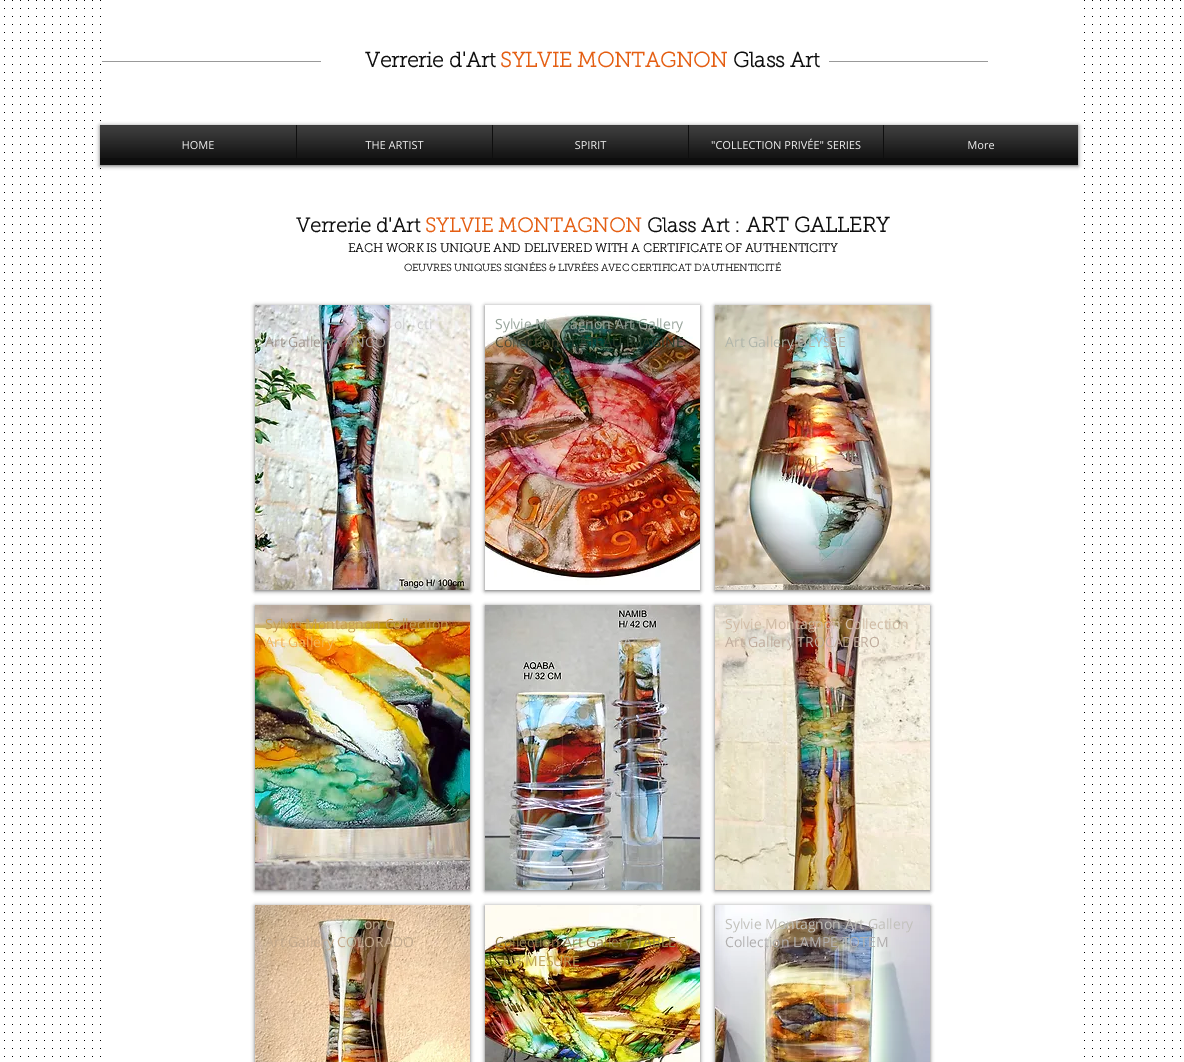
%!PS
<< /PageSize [1184 1062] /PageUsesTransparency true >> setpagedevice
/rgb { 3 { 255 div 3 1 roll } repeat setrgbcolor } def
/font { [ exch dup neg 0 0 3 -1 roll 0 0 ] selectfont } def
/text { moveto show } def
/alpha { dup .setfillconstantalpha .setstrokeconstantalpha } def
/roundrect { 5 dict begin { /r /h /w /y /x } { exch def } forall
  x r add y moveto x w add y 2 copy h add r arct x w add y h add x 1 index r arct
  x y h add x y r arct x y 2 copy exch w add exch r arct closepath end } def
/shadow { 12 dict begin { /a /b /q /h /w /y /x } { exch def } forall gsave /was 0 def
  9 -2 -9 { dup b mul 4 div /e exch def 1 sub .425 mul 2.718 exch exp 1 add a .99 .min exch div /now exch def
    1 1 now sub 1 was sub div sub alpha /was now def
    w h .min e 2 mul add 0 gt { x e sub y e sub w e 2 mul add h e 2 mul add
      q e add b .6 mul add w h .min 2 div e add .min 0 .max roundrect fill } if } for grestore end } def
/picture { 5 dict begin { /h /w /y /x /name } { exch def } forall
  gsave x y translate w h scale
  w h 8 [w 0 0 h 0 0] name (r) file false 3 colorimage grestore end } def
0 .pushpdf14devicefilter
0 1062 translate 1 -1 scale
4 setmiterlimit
255 255 255 rgb
0 0 1184 1062 rectfill
(img_01.rgb) 4 0 1177 1057 picture
108 0 969 169 rectfill
153 153 153 rgb
102 61 219 1 rectfill
829 61 159 1 rectfill
0 0 0 rgb
100 126 978 40 0 2 0.6 shadow
14 14 14 rgb
100 125 978 40 rectfill
255 255 255 rgb
108 176 969 881 rectfill
0 0 0 rgb
255 306 215 285 0 2 0.6 shadow
(img_12.rgb) 255 305 215 285 picture
485 306 215 285 0 2 0.6 shadow
(img_13.rgb) 485 305 215 285 picture
715 306 215 285 0 2 0.6 shadow
(img_14.rgb) 715 305 215 285 picture
255 606 215 285 0 2 0.6 shadow
(img_15.rgb) 255 605 215 285 picture
485 606 215 285 0 2 0.6 shadow
(img_16.rgb) 485 605 215 285 picture
715 606 215 285 0 2 0.6 shadow
(img_17.rgb) 715 605 215 285 picture
255 906 215 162 0 2 0.6 shadow
(img_18.rgb) 255 905 215 157 picture
715 906 215 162 0 2 0.6 shadow
(img_19.rgb) 715 905 215 157 picture
485 906 215 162 0 2 0.6 shadow
(img_20.rgb) 485 905 215 157 picture
/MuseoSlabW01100-Bold 21 font
14 14 14 rgb
(Verrerie d'Art) 365 67 text
228 94 18 rgb
(SYLVIE MONTAGNON) 500 67 text
14 14 14 rgb
(Glass Art) 733 67 text
/OpenSans-Regular 11 font
255 255 255 rgb
(HOME) 182 149 text
(img_02.rgb) 100 125 196 33 picture
(img_03.rgb) 182 141 32 8 picture
(THE ARTIST) 365 149 text
(img_04.rgb) 297 125 195 33 picture
(img_05.rgb) 365 141 59 8 picture
(SPIRIT) 575 149 text
(img_06.rgb) 493 125 195 33 picture
(img_07.rgb) 575 141 31 8 picture
("COLLECTION PRIVÉE" SERIES) 711 149 text
(img_08.rgb) 689 125 194 33 picture
(img_09.rgb) 712 139 149 11 picture
(More) 967 149 text
(img_10.rgb) 884 125 194 33 picture
(img_11.rgb) 968 141 26 8 picture
/MuseoSlabW01100-Bold 20 font
14 14 14 rgb
(Verrerie d'Art) 296 232 text
228 94 18 rgb
(SYLVIE MONTAGNON) 425 232 text
14 14 14 rgb
(Glass Art :) 647 232 text
/MuseoSlabW01100-Bold 21 font
(ART GALLERY) 746 232 text
/MuseoSlabW01100-Bold 12 font
0 0 0 rgb
(EACH WORK IS UNIQUE AND DELIVERED WITH A CERTIFICATE OF AUTHENTICITY) 348 252 text
/MuseoSlabW01100-Bold 10 font
14 14 14 rgb
(OEUVRES UNIQUES SIGNÉES & LIVRÉES AVEC CERTIFICAT D'AUTHENTICITÉ) 404 271 text
/OpenSans-Regular 14 font
206 206 208 rgb
(n) 355 329 text
(ol) 394 329 text
(cti) 417 329 text
162 152 145 rgb
(Art Gallery TANGO) 265 347 text
152 164 155 rgb
(Sylvie M) 495 329 text
(agnon Art Gallery) 570 329 text
80 77 55 rgb
(Collection) 495 347 text
43 60 43 rgb
(PLATEAU IMAGINE) 563 347 text
177 182 171 rgb
(Art Gallery ULYSSE) 725 347 text
198 157 81 rgb
(Sylvie Montagnon Collection) 265 629 text
243 182 87 rgb
(Art Gallery) 265 647 text
194 193 187 rgb
(A) 623 647 text
208 187 165 rgb
(Sylvie Montagnon Collection) 725 629 text
192 172 157 rgb
(Art Gallery TROCADERO) 725 647 text
200 181 154 rgb
(on C) 364 929 text
194 169 141 rgb
(Art Gallery COLORADO) 265 947 text
194 193 187 rgb
(Sylvie Montagnon Art Gallery) 725 929 text
177 175 175 rgb
(Collection LAMPE TOTEM) 725 947 text
148 130 78 rgb
(Collection Art Gallery TABLE) 495 947 text
188 161 90 rgb
(SUR MESURE) 495 966 text
.poppdf14devicefilter showpage
